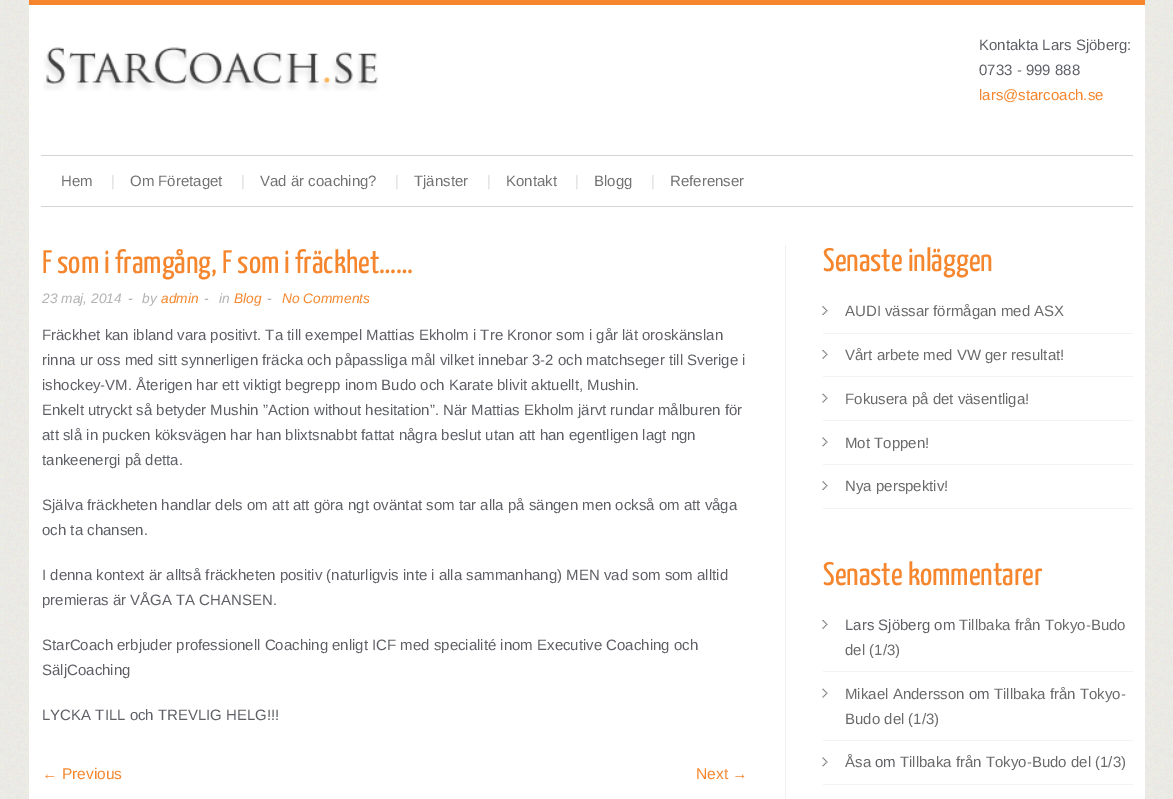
%!PS
<< /PageSize [1173 799] >> setpagedevice
/rgb { 3 { 255 div 3 1 roll } repeat setrgbcolor } def
/font { [ exch dup neg 0 0 3 -1 roll 0 0 ] selectfont } def
/text { moveto show } def
/picture { 5 dict begin { /h /w /y /x /name } { exch def } forall
  gsave x y translate w h scale
  w h 8 [w 0 0 h 0 0] name (r) file false 3 colorimage grestore end } def
0 799 translate 1 -1 scale
4 setmiterlimit
255 255 255 rgb
0 0 1173 799 rectfill
(img_01.rgb) 0 0 1173 799 picture
29 5 1116 794 rectfill
245 134 45 rgb
29 0 1116 5 rectfill
(img_02.rgb) 43 47 335 44 picture
213 213 213 rgb
41 155 1092 1 rectfill
41 206 1092 1 rectfill
240 240 240 rgb
785 245 1 554 rectfill
(img_03.rgb) 822 306 6 9 picture
243 243 243 rgb
823 333 310 1 rectfill
(img_04.rgb) 822 350 6 9 picture
823 376 310 1 rectfill
(img_05.rgb) 822 393 6 10 picture
823 420 310 1 rectfill
(img_06.rgb) 822 437 6 10 picture
823 464 310 1 rectfill
(img_03.rgb) 822 481 6 9 picture
823 508 310 1 rectfill
(img_04.rgb) 822 620 6 9 picture
823 671 310 1 rectfill
(img_05.rgb) 822 688 6 10 picture
823 740 310 1 rectfill
(img_06.rgb) 822 757 6 10 picture
823 784 310 1 rectfill
/LiberationSans-Regular 15 font
94 96 102 rgb
(Kontakta Lars Sjöberg:) 979 50 text
(0733 - 999 888) 979 75 text
245 134 45 rgb
(lars@starcoach.se) 979 100 text
114 114 114 rgb
(Hem) 61 186 text
222 222 222 rgb
(|) 111 186 text
114 114 114 rgb
(Om Företaget) 130 186 text
222 222 222 rgb
(|) 241 186 text
114 114 114 rgb
(Vad är coaching?) 260 186 text
222 222 222 rgb
(|) 395 186 text
114 114 114 rgb
(Tjänster) 414 186 text
222 222 222 rgb
(|) 487 186 text
114 114 114 rgb
(Kontakt) 506 186 text
222 222 222 rgb
(|) 575 186 text
114 114 114 rgb
(Blogg) 594 186 text
222 222 222 rgb
(|) 651 186 text
114 114 114 rgb
(Referenser) 670 186 text
/YanoneKaffeesatz-Regular 32.5 font
245 134 45 rgb
(F som i framgång, F som i fräckhet……) 42 273 text
/LiberationSans-Italic 13.75 font
178 178 178 rgb
(23 maj, 2014) 42 303 text
(-) 128 303 text
(by) 142 303 text
245 134 45 rgb
(admin) 161 303 text
178 178 178 rgb
(-) 204 303 text
(in) 219 303 text
245 134 45 rgb
(Blog) 234 303 text
178 178 178 rgb
(-) 267 303 text
245 134 45 rgb
(No Comments) 282 303 text
/LiberationSans-Regular 15 font
94 96 102 rgb
(Fräckhet kan ibland vara positivt. Ta till exempel Mattias Ekholm i Tre Kronor som i går lät oroskänslan) 42 340 text
(rinna ur oss med sitt synnerligen fräcka och påpassliga mål vilket innebar 3-2 och matchseger till Sverige i) 42 365 text
(ishockey-VM. Återigen har ett viktigt begrepp inom Budo och Karate blivit aktuellt, Mushin.) 42 390 text
(Enkelt utryckt så betyder Mushin ”Action without hesitation”. När Mattias Ekholm järvt rundar målburen för) 42 415 text
(att slå in pucken köksvägen har han blixtsnabbt fattat några beslut utan att han egentligen lagt ngn) 42 440 text
(tankeenergi på detta.) 42 465 text
(Själva fräckheten handlar dels om att att göra ngt oväntat som tar alla på sängen men också om att våga) 42 510 text
(och ta chansen.) 42 535 text
(I denna kontext är alltså fräckheten positiv \(naturligvis inte i alla sammanhang\) MEN vad som som alltid) 42 580 text
(premieras är VÅGA TA CHANSEN.) 42 605 text
(StarCoach erbjuder professionell Coaching enligt ICF med specialité inom Executive Coaching och) 42 650 text
(SäljCoaching) 42 675 text
(LYCKA TILL och TREVLIG HELG!!!) 42 720 text
/LiberationSans-Regular 15.5 font
245 134 45 rgb
(← Previous) 42 779 text
(Next →) 696 779 text
/YanoneKaffeesatz-Regular 32.5 font
(Senaste inläggen) 823 271 text
/LiberationSans-Regular 15 font
106 106 106 rgb
(AUDI vässar förmågan med ASX) 845 316 text
(Vårt arbete med VW ger resultat!) 845 360 text
(Fokusera på det väsentliga!) 845 404 text
(Mot Toppen!) 845 448 text
(Nya perspektiv!) 845 491 text
/YanoneKaffeesatz-Regular 32.5 font
245 134 45 rgb
(Senaste kommentarer) 823 585 text
/LiberationSans-Regular 15 font
94 96 102 rgb
(Lars Sjöberg om) 845 630 text
106 106 106 rgb
(Tillbaka från Tokyo-Budo) 959 630 text
(del \(1/3\)) 845 655 text
(Mikael Andersson) 845 699 text
94 96 102 rgb
(om) 969 699 text
106 106 106 rgb
(Tillbaka från Tokyo-) 994 699 text
(Budo del \(1/3\)) 845 724 text
(Åsa) 845 767 text
94 96 102 rgb
(om) 875 767 text
106 106 106 rgb
(Tillbaka från Tokyo-Budo del \(1/3\)) 900 767 text
showpage
